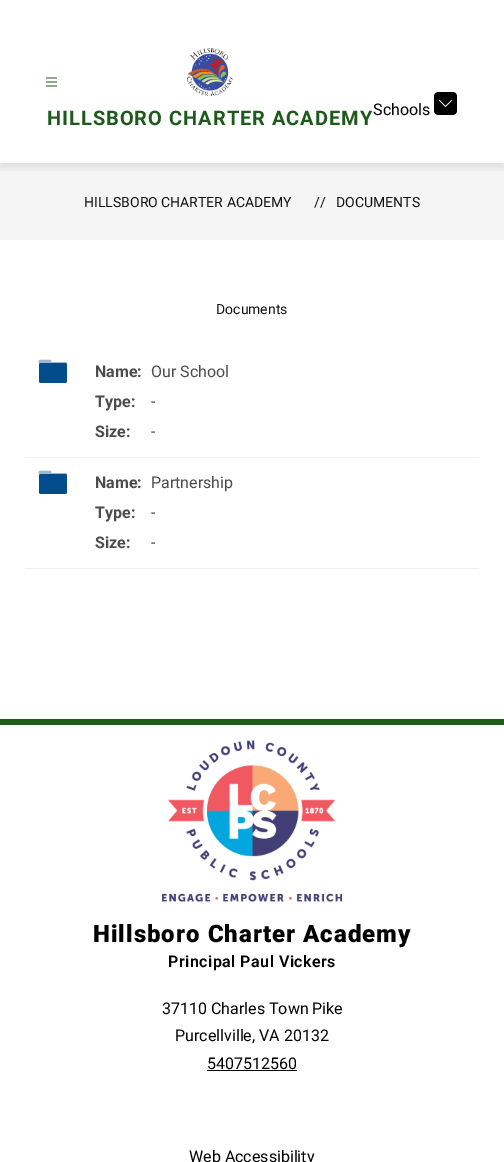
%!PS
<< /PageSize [504 1162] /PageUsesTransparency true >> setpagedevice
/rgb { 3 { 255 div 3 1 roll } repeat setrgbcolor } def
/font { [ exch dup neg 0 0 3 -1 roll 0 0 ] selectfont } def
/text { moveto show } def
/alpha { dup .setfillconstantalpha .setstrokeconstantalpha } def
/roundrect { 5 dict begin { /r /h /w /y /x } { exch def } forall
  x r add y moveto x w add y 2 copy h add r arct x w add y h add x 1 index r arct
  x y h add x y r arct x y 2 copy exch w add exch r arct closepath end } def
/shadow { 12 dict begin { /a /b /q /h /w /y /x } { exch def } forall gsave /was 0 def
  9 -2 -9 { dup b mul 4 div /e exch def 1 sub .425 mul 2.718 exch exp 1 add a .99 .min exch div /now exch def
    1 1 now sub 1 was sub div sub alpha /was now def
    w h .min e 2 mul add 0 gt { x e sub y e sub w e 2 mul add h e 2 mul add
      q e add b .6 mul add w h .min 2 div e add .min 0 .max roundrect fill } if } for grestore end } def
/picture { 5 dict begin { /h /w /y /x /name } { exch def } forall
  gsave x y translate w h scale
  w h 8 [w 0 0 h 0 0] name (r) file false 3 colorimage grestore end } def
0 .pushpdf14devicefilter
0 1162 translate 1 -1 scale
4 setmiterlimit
255 255 255 rgb
0 0 504 1162 rectfill
245 245 245 rgb
0 163 504 77 rectfill
gsave
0 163 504 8 rectclip
0 0 0 rgb
0 4 504 163 0 5 0.1 shadow
grestore
(img_01.rgb) 46 77 11 10 picture
(img_02.rgb) 187 48 46 48 picture
(img_03.rgb) 434 92 23 23 picture
240 240 240 rgb
25 457 454 1 rectfill
(img_04.rgb) 38 359 29 24 picture
25 568 454 1 rectfill
(img_04.rgb) 38 470 29 24 picture
29 90 27 rgb
0 719 504 6 rectfill
(img_05.rgb) 162 740 180 162 picture
0 0 0 rgb
207 1070 90 1 rectfill
/Roboto-Bold 20 font
29 90 27 rgb
47 125 moveto 1 0 (HILLSBORO CHARTER ACADEMY) ashow
/Roboto-Regular 16 font
0 0 0 rgb
(Schools) 373 115 text
/Roboto-Regular 14 font
17 17 17 rgb
(HILLSBORO CHARTER ACADEMY) 84 207 text
(//) 314 207 text
(DOCUMENTS) 336 207 text
(Documents) 216 314 text
/Roboto-Bold 16 font
76 76 76 rgb
(Name:) 95 377 text
/Roboto-Regular 16 font
(Our School) 151 377 text
/Roboto-Bold 16 font
(Type:) 95 407 text
/Roboto-Regular 16 font
(-) 151 407 text
/Roboto-Bold 16 font
(Size:) 95 437 text
/Roboto-Regular 16 font
(-) 151 437 text
/Roboto-Bold 16 font
(Name:) 95 488 text
/Roboto-Regular 16 font
(Partnership) 151 488 text
/Roboto-Bold 16 font
(Type:) 95 518 text
/Roboto-Regular 16 font
(-) 151 518 text
/Roboto-Bold 16 font
(Size:) 95 548 text
/Roboto-Regular 16 font
(-) 151 548 text
/Roboto-Black 24 font
0 0 0 rgb
93 942 moveto 1 0 (Hillsboro Charter Academy) ashow
/Roboto-SemiBold 16 font
168 967 moveto 0.5 0 (Principal Paul Vickers) ashow
/Roboto-Regular 16 font
(37110 Charles Town Pike) 162 1014 text
(Purcellville, VA 20132) 175 1041 text
(5407512560) 207 1069 text
(Web Accessibility) 189 1162 text
.poppdf14devicefilter showpage
